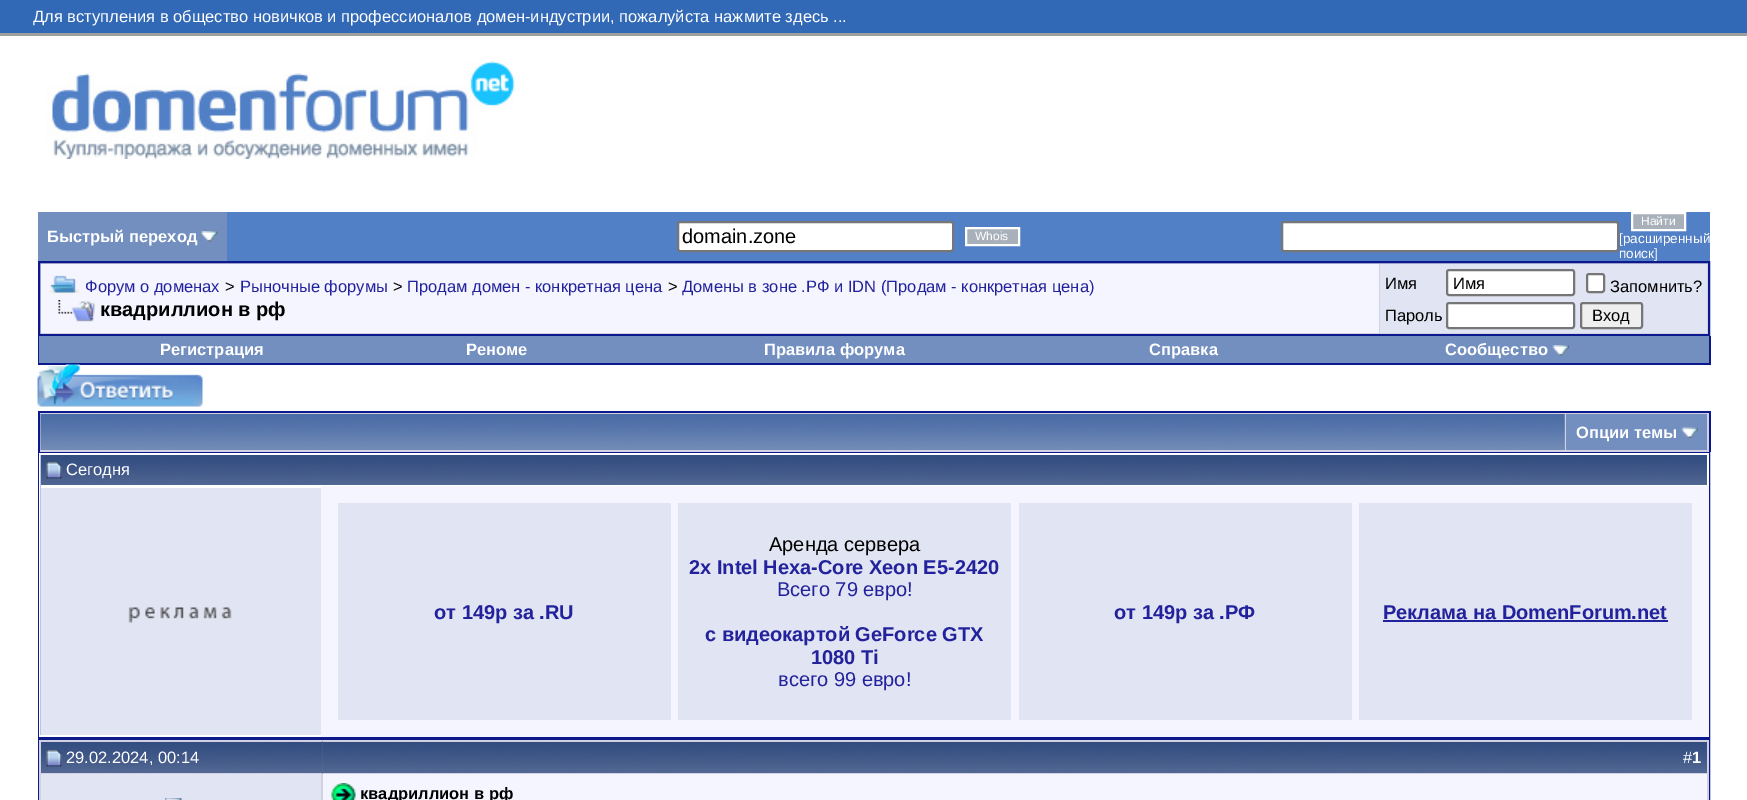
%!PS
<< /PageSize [1747 800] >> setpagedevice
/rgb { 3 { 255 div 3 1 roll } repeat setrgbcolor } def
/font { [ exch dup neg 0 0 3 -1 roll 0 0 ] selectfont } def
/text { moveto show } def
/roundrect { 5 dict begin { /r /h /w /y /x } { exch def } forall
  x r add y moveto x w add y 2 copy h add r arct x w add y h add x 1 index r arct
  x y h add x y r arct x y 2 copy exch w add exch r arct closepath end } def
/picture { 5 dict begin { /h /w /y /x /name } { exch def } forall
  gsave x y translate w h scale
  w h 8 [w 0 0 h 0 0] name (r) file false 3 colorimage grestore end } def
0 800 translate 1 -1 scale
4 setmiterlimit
255 255 255 rgb
0 0 1747 800 rectfill
49 105 182 rgb
0 0 1747 33 rectfill
159 159 159 rgb
0 33 1747 3 rectfill
(img_01.rgb) 46 61 469 98 picture
115 143 191 rgb
38 212 189 49 rectfill
(img_02.rgb) 201 231 17 11 picture
82 128 198 rgb
227 212 1483 49 rectfill
255 255 255 rgb
678 222 275 29 2 roundrect gsave fill grestore
118 118 118 rgb
2 setlinewidth
stroke
168 176 186 rgb
966 228 moveto 53 0 rlineto 0 17 rlineto -53 0 rlineto closepath gsave fill grestore
255 255 255 rgb
stroke
1282 222 336 29 2 roundrect gsave fill grestore
118 118 118 rgb
stroke
168 176 186 rgb
1632 213 moveto 53 0 rlineto 0 17 rlineto -53 0 rlineto closepath gsave fill grestore
255 255 255 rgb
stroke
209 209 225 rgb
39 262 moveto 1670 0 rlineto 0 73 rlineto -1670 0 rlineto closepath gsave fill grestore
11 25 140 rgb
stroke
245 245 255 rgb
41 264 1338 69 rectfill
(img_03.rgb) 49 275 31 19 picture
(img_04.rgb) 58 300 37 22 picture
225 228 242 rgb
1380 264 327 69 rectfill
255 255 255 rgb
1447 270 127 25 2 roundrect gsave fill grestore
118 118 118 rgb
stroke
255 255 255 rgb
1587 274 17 18 2 roundrect gsave fill grestore
118 118 118 rgb
stroke
255 255 255 rgb
1447 303 127 25 2 roundrect gsave fill grestore
118 118 118 rgb
stroke
239 239 239 rgb
1581 303 61 25 2 roundrect gsave fill grestore
118 118 118 rgb
stroke
11 25 140 rgb
1709 336 2 29 rectfill
38 363 1672 2 rectfill
38 336 2 29 rectfill
115 143 191 rgb
39 336 1670 27 rectfill
(img_05.rgb) 1552 345 17 11 picture
(img_06.rgb) 37 364 166 43 picture
209 209 225 rgb
40 413 1669 39 rectfill
11 25 140 rgb
38 411 1672 2 rectfill
1709 411 2 41 rectfill
38 411 2 41 rectfill
134 155 191 rgb
1564 414 1 36 rectfill
(img_07.rgb) 40 414 1525 36 picture
115 143 191 rgb
1566 414 141 36 rectfill
(img_08.rgb) 1681 427 17 11 picture
11 25 140 rgb
39 453 1670 284 rectstroke
(img_09.rgb) 41 455 280 30 picture
255 255 255 rgb
39 453 1670 2 rectfill
39 453 1 35 rectfill
(img_10.rgb) 46 462 16 17 picture
(img_11.rgb) 321 455 1386 30 picture
1708 453 1 33 rectfill
225 228 242 rgb
41 488 280 247 rectfill
255 255 255 rgb
39 735 282 2 rectfill
39 486 1 251 rectfill
(img_12.rgb) 128 607 104 16 picture
245 245 255 rgb
321 486 1388 251 rectfill
225 228 242 rgb
338 503 333 217 rectfill
678 503 333 217 rectfill
1019 503 333 217 rectfill
1359 503 333 217 rectfill
34 34 156 rgb
1383 620 285 2 rectfill
11 25 140 rgb
39 739 1670 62 rectstroke
(img_13.rgb) 41 742 282 31 picture
209 209 225 rgb
39 740 284 2 rectfill
39 773 284 1 rectfill
39 740 2 60 rectfill
(img_14.rgb) 46 750 16 17 picture
(img_15.rgb) 322 741 1385 33 picture
323 740 1386 2 rectfill
1707 740 2 60 rectfill
323 773 1386 1 rectfill
225 228 242 rgb
41 774 280 26 rectfill
209 209 225 rgb
321 774 2 26 rectfill
(img_16.rgb) 165 798 17 2 picture
245 245 255 rgb
323 774 1384 26 rectfill
(img_17.rgb) 331 783 25 17 picture
/LiberationSans-Regular 16.5 font
255 255 255 rgb
(Для вступления в общество новичков и профессионалов домен-индустрии, пожалуйста нажмите здесь ...) 33 22 text
/LiberationSans-Bold 16.5 font
(Быстрый переход) 47 242 text
/LiberationSans-Regular 20 font
0 0 0 rgb
(domain.zone) 682 243 text
/LiberationSans-Regular 12 font
255 255 255 rgb
(Whois) 975 240 text
(Найти) 1641 225 text
/LiberationSans-Regular 13.5 font
([расширенный) 1619 243 text
(поиск]) 1619 258 text
/LiberationSans-Regular 16.5 font
34 34 156 rgb
(Форум о доменах) 85 292 text
0 0 0 rgb
(>) 225 292 text
34 34 156 rgb
(Рыночные форумы) 240 292 text
0 0 0 rgb
(>) 393 292 text
34 34 156 rgb
(Продам домен - конкретная цена) 407 292 text
0 0 0 rgb
(>) 668 292 text
34 34 156 rgb
(Домены в зоне .РФ и IDN \(Продам - конкретная цена\)) 682 292 text
/LiberationSans-Bold 20 font
0 0 0 rgb
(квaдpиллиoн в рф) 100 316 text
/LiberationSans-Regular 16.5 font
(Имя) 1385 289 text
(Имя) 1453 289 text
(Запомнить?) 1610 292 text
(Пароль) 1385 321 text
(Вход) 1592 321 text
/LiberationSans-Bold 16.5 font
255 255 255 rgb
(Регистрация) 160 355 text
(Реноме) 466 355 text
(Правила форума) 764 355 text
(Справка) 1149 355 text
(Сообщество) 1445 355 text
(Опции темы) 1576 438 text
/LiberationSans-Regular 16.5 font
(Сегодня) 66 475 text
/LiberationSans-Bold 20 font
34 34 156 rgb
(от 149р за .RU) 434 619 text
/LiberationSans-Regular 20 font
0 0 0 rgb
(Аренда сервера) 769 551 text
/LiberationSans-Bold 20 font
34 34 156 rgb
(2x Intel Hexa-Core Xeon E5-2420) 689 574 text
/LiberationSans-Regular 20 font
(Всего 79 евро!) 777 596 text
/LiberationSans-Bold 20 font
(с видеокартой GeForce GTX) 705 641 text
(1080 Ti) 811 664 text
/LiberationSans-Regular 20 font
(всего 99 евро!) 778 686 text
/LiberationSans-Bold 20 font
(от 149р за .РФ) 1114 619 text
(Реклама на DomenForum.net) 1383 619 text
/LiberationSans-Regular 16.5 font
255 255 255 rgb
(29.02.2024, 00:14) 66 763 text
(#) 1683 763 text
/LiberationSans-Bold 16.5 font
(1) 1692 763 text
0 0 0 rgb
(квaдpиллиoн в рф) 360 799 text
showpage
